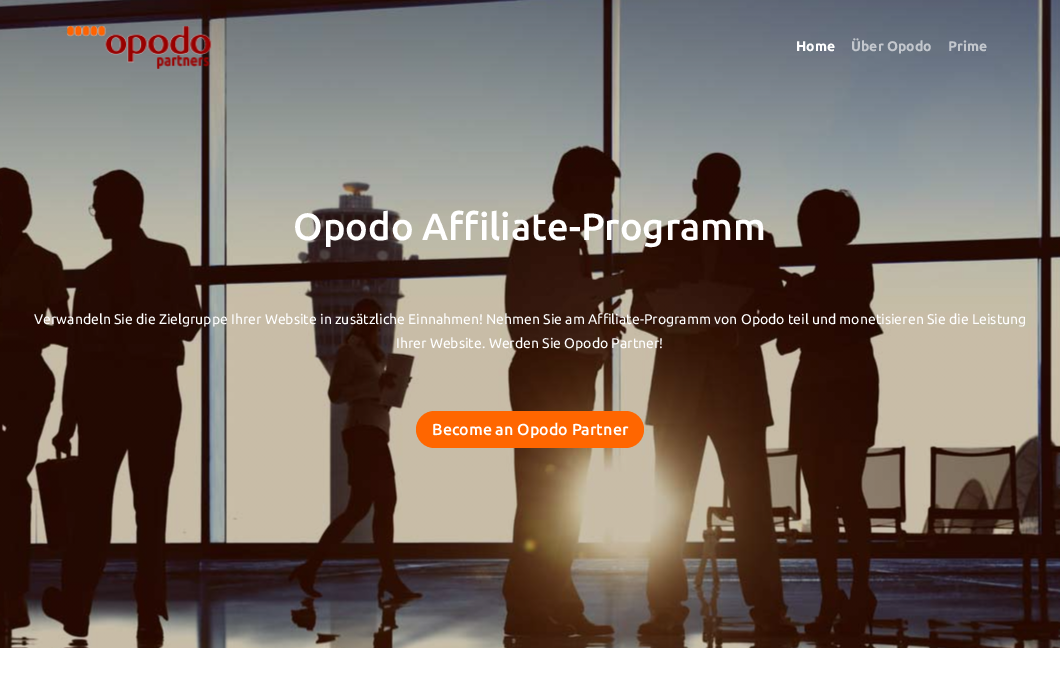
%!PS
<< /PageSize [1060 677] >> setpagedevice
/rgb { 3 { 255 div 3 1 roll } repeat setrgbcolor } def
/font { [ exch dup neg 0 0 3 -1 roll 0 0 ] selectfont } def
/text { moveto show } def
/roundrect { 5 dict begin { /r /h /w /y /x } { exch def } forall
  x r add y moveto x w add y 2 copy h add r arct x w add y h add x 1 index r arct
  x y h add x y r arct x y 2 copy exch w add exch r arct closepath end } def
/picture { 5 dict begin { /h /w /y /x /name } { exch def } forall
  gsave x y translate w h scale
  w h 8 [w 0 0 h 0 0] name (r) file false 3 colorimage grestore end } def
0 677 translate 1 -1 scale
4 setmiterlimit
255 255 255 rgb
0 0 1060 677 rectfill
(img_02.rgb) 0 0 1060 648 picture
(img_01.rgb) 67 26 146 43 picture
255 102 0 rgb
416 411 228 37 18.5 roundrect fill
/Ubuntu-Bold 14 font
255 255 255 rgb
(Home) 796 51 text
195 199 205 rgb
(Über Opodo) 851 51 text
(Prime) 948 51 text
/Ubuntu-Medium 38 font
255 255 255 rgb
(Opodo Affiliate-Programm) 293 240 text
/Ubuntu-Regular 14 font
(Verwandeln Sie die Zielgruppe Ihrer Website in zusätzliche Einnahmen! Nehmen Sie am Affiliate-Programm von Opodo teil und monetisieren Sie die Leistung) 34 324 text
(Ihrer Website. Werden Sie Opodo Partner!) 396 348 text
/Ubuntu-Medium 16 font
(Become an Opodo Partner) 432 435 text
showpage
